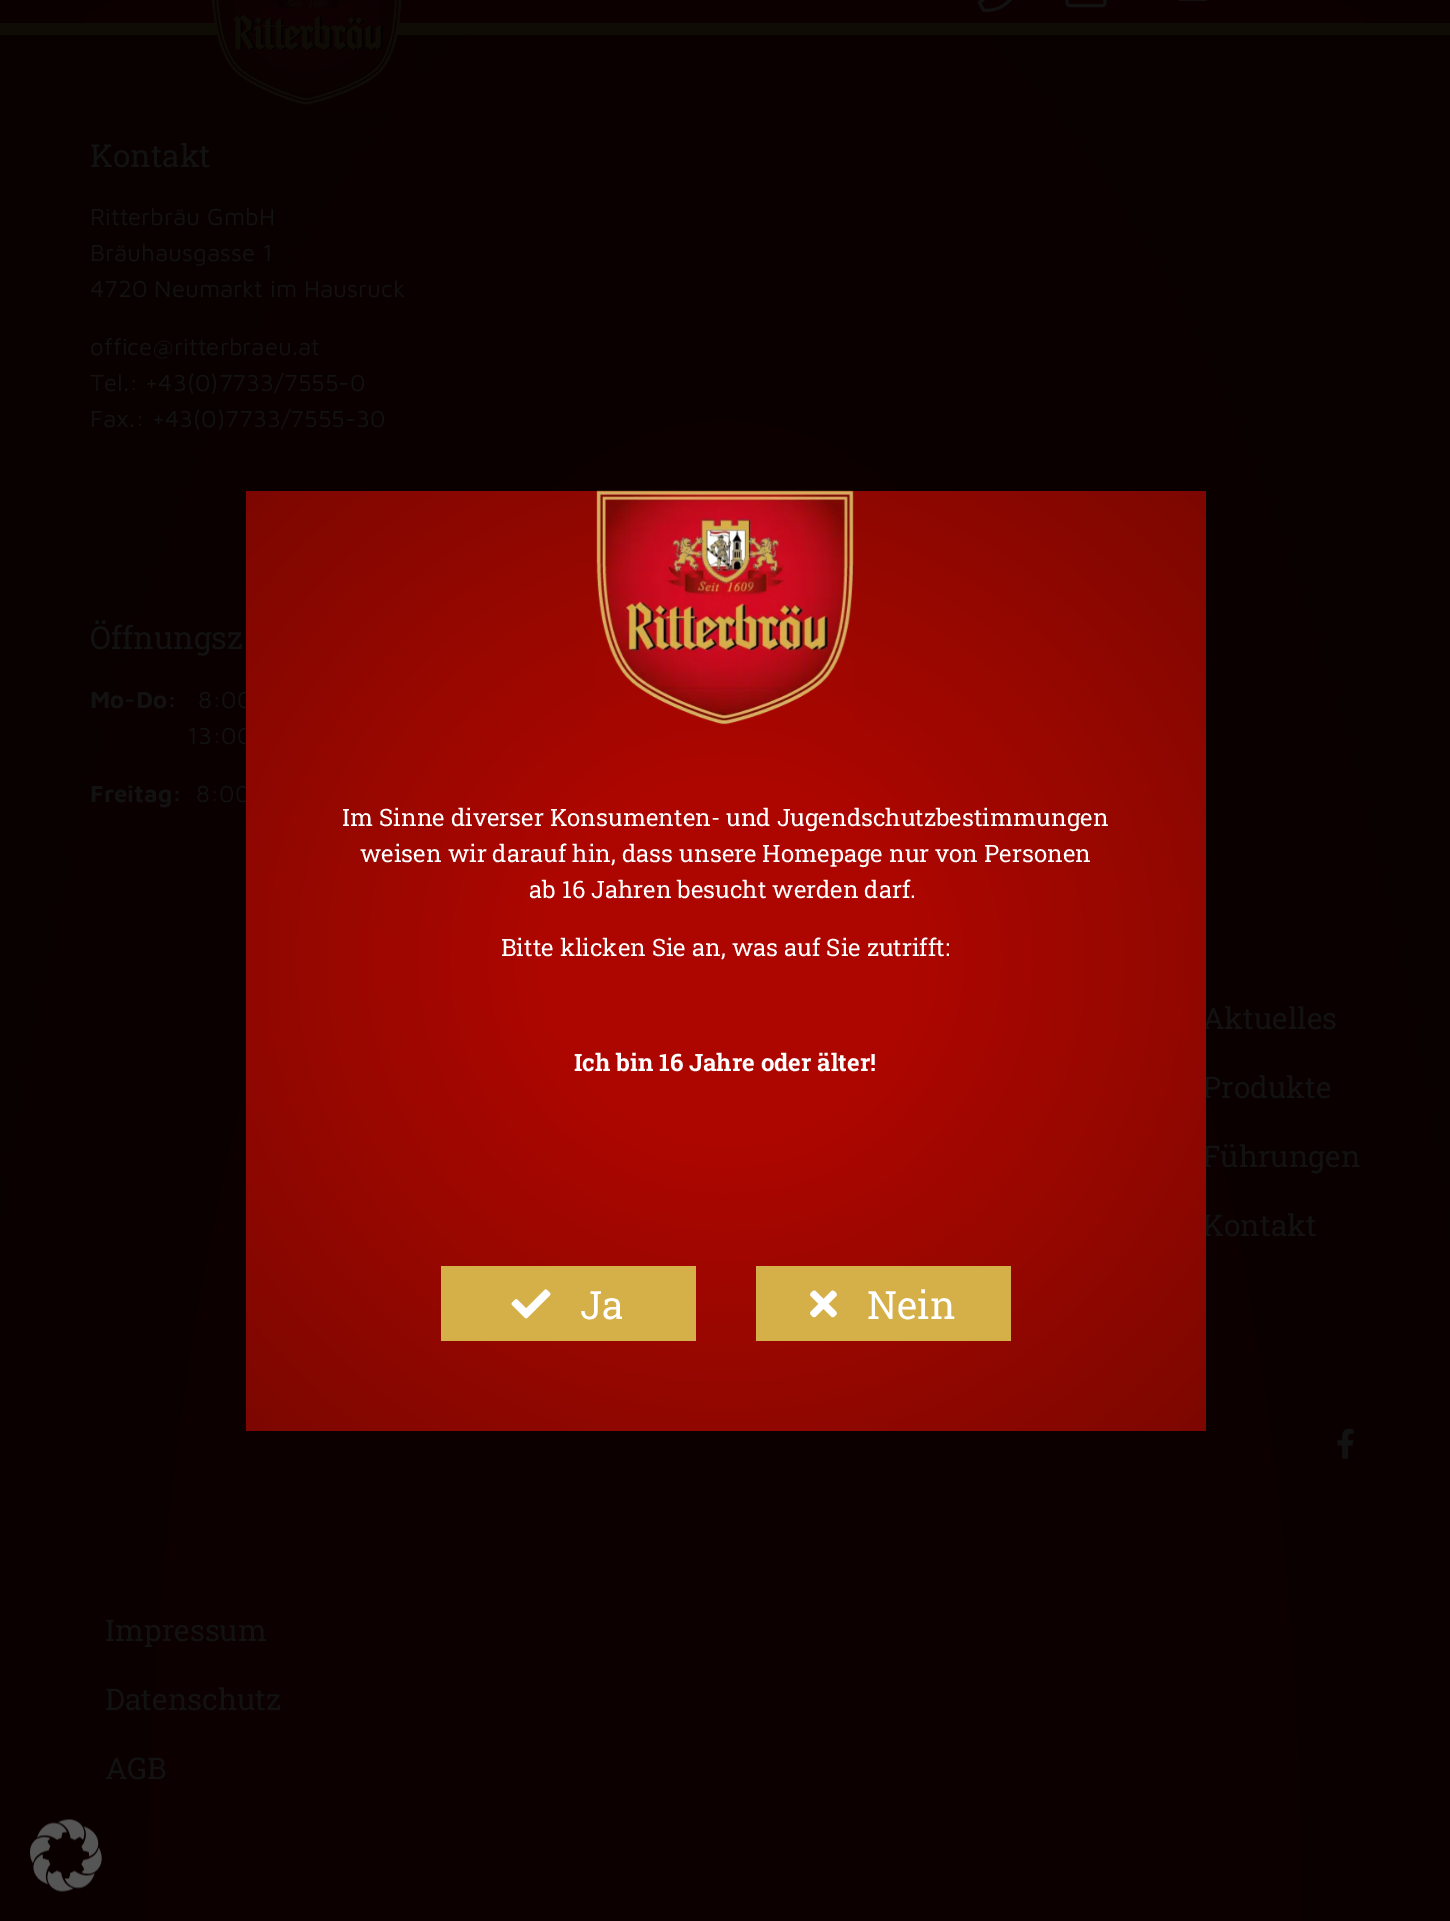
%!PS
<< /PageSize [1450 1921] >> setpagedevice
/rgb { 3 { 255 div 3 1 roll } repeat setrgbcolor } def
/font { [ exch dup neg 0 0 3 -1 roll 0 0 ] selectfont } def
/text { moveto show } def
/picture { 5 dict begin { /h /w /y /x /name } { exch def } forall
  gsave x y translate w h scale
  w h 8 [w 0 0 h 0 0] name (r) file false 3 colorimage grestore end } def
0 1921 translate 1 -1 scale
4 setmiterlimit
255 255 255 rgb
0 0 1450 1921 rectfill
gsave 0 0 moveto 1450 0 rlineto 0 23 rlineto -1450 0 rlineto closepath clip newpath 725 23 translate 1026 117 scale
<< /ShadingType 3 /ColorSpace /DeviceRGB /Coords [0 0 0 0 0 1] /Extend [true true] /Function << /FunctionType 3 /Domain [0 1] /Functions [<< /FunctionType 2 /Domain [0 1] /C0 [0.047 0 0] /C1 [0.047 0 0] /N 1 >> << /FunctionType 2 /Domain [0 1] /C0 [0.047 0 0] /C1 [0.035 0.004 0] /N 1 >>] /Bounds [0.57] /Encode [0 1 0 1] >> >> shfill grestore
gsave 0 35 moveto 1450 0 rlineto 0 1886 rlineto -1450 0 rlineto closepath clip newpath 725 1922 translate 1026 2669 scale
<< /ShadingType 3 /ColorSpace /DeviceRGB /Coords [0 0 0 0 0 1] /Extend [true true] /Function << /FunctionType 3 /Domain [0 1] /Functions [<< /FunctionType 2 /Domain [0 1] /C0 [0.047 0 0] /C1 [0.047 0 0] /N 1 >> << /FunctionType 2 /Domain [0 1] /C0 [0.047 0 0] /C1 [0.035 0.004 0] /N 1 >> << /FunctionType 2 /Domain [0 1] /C0 [0.035 0.004 0] /C1 [0.035 0.004 0] /N 1 >>] /Bounds [0.52 0.89] /Encode [0 1 0 1 0 1] >> >> shfill grestore
15 12 5 rgb
0 23 1450 12 rectfill
(img_01.rgb) 212 0 190 105 picture
(img_02.rgb) 978 0 34 13 picture
(img_03.rgb) 1065 0 42 8 picture
(img_04.rgb) 1177 0 31 1 picture
(img_05.rgb) 1337 1428 17 31 picture
(img_09.rgb) 30 1819 72 73 picture
/RobotoSlab-Regular 31.5 font
18 18 18 rgb
(Kontakt) 90 167 text
/MavenPro-Regular 24 font
(Ritterbräu GmbH) 90 225 text
(Bräuhausgasse 1) 90 261 text
(4720 Neumarkt im Hausruck) 90 297 text
(office@ritterbraeu.at) 90 355 text
(Tel.: +43\(0\)7733/7555-0) 90 391 text
(Fax.: +43\(0\)7733/7555-30) 90 427 text
/RobotoSlab-Regular 31.5 font
(Öffnungsz) 90 649 text
/MavenPro-Bold 24 font
(Mo-Do:) 90 708 text
/MavenPro-Regular 24 font
(8:00) 198 708 text
(13:00) 187 744 text
/MavenPro-Bold 24 font
(Freitag:) 90 802 text
/MavenPro-Regular 24 font
(8:00) 196 802 text
/RobotoSlab-Regular 30 font
(Aktuelles) 1202 1029 text
(Produkte) 1202 1098 text
(Führungen) 1202 1167 text
(Kontakt) 1202 1236 text
(Impressum) 105 1641 text
(Datenschutz) 105 1710 text
(AGB) 105 1779 text
gsave 246 491 moveto 960 0 rlineto 0 940 rlineto -960 0 rlineto closepath clip newpath 726 961 translate 679 665 scale
<< /ShadingType 3 /ColorSpace /DeviceRGB /Coords [0 0 0 0 0 1] /Extend [true true] /Function << /FunctionType 3 /Domain [0 1] /Functions [<< /FunctionType 2 /Domain [0 1] /C0 [0.678 0.024 0] /C1 [0.678 0.024 0] /N 1 >> << /FunctionType 2 /Domain [0 1] /C0 [0.678 0.024 0] /C1 [0.486 0.031 0] /N 1 >>] /Bounds [0.28] /Encode [0 1 0 1] >> >> shfill grestore
(img_06.rgb) 596 490 258 235 picture
/RobotoSlab-Regular 24 font
255 255 255 rgb
(Im Sinne diverser Konsumenten- und Jugendschutzbestimmungen) 342 826 text
(weisen wir darauf hin, dass unsere Homepage nur von Personen) 360 862 text
(ab 16 Jahren besucht werden darf.) 529 898 text
(Bitte klicken Sie an, was auf Sie zutrifft:) 501 956 text
/RobotoSlab-Bold 24 font
(Ich bin 16 Jahre oder älter!) 574 1071 text
213 175 72 rgb
441 1266 255 75 rectfill
(img_07.rgb) 511 1289 40 30 picture
/RobotoSlab-Regular 39 font
255 255 255 rgb
(Ja) 580 1319 text
213 175 72 rgb
756 1266 255 75 rectfill
(img_08.rgb) 810 1290 27 28 picture
255 255 255 rgb
(Nein) 867 1319 text
showpage
